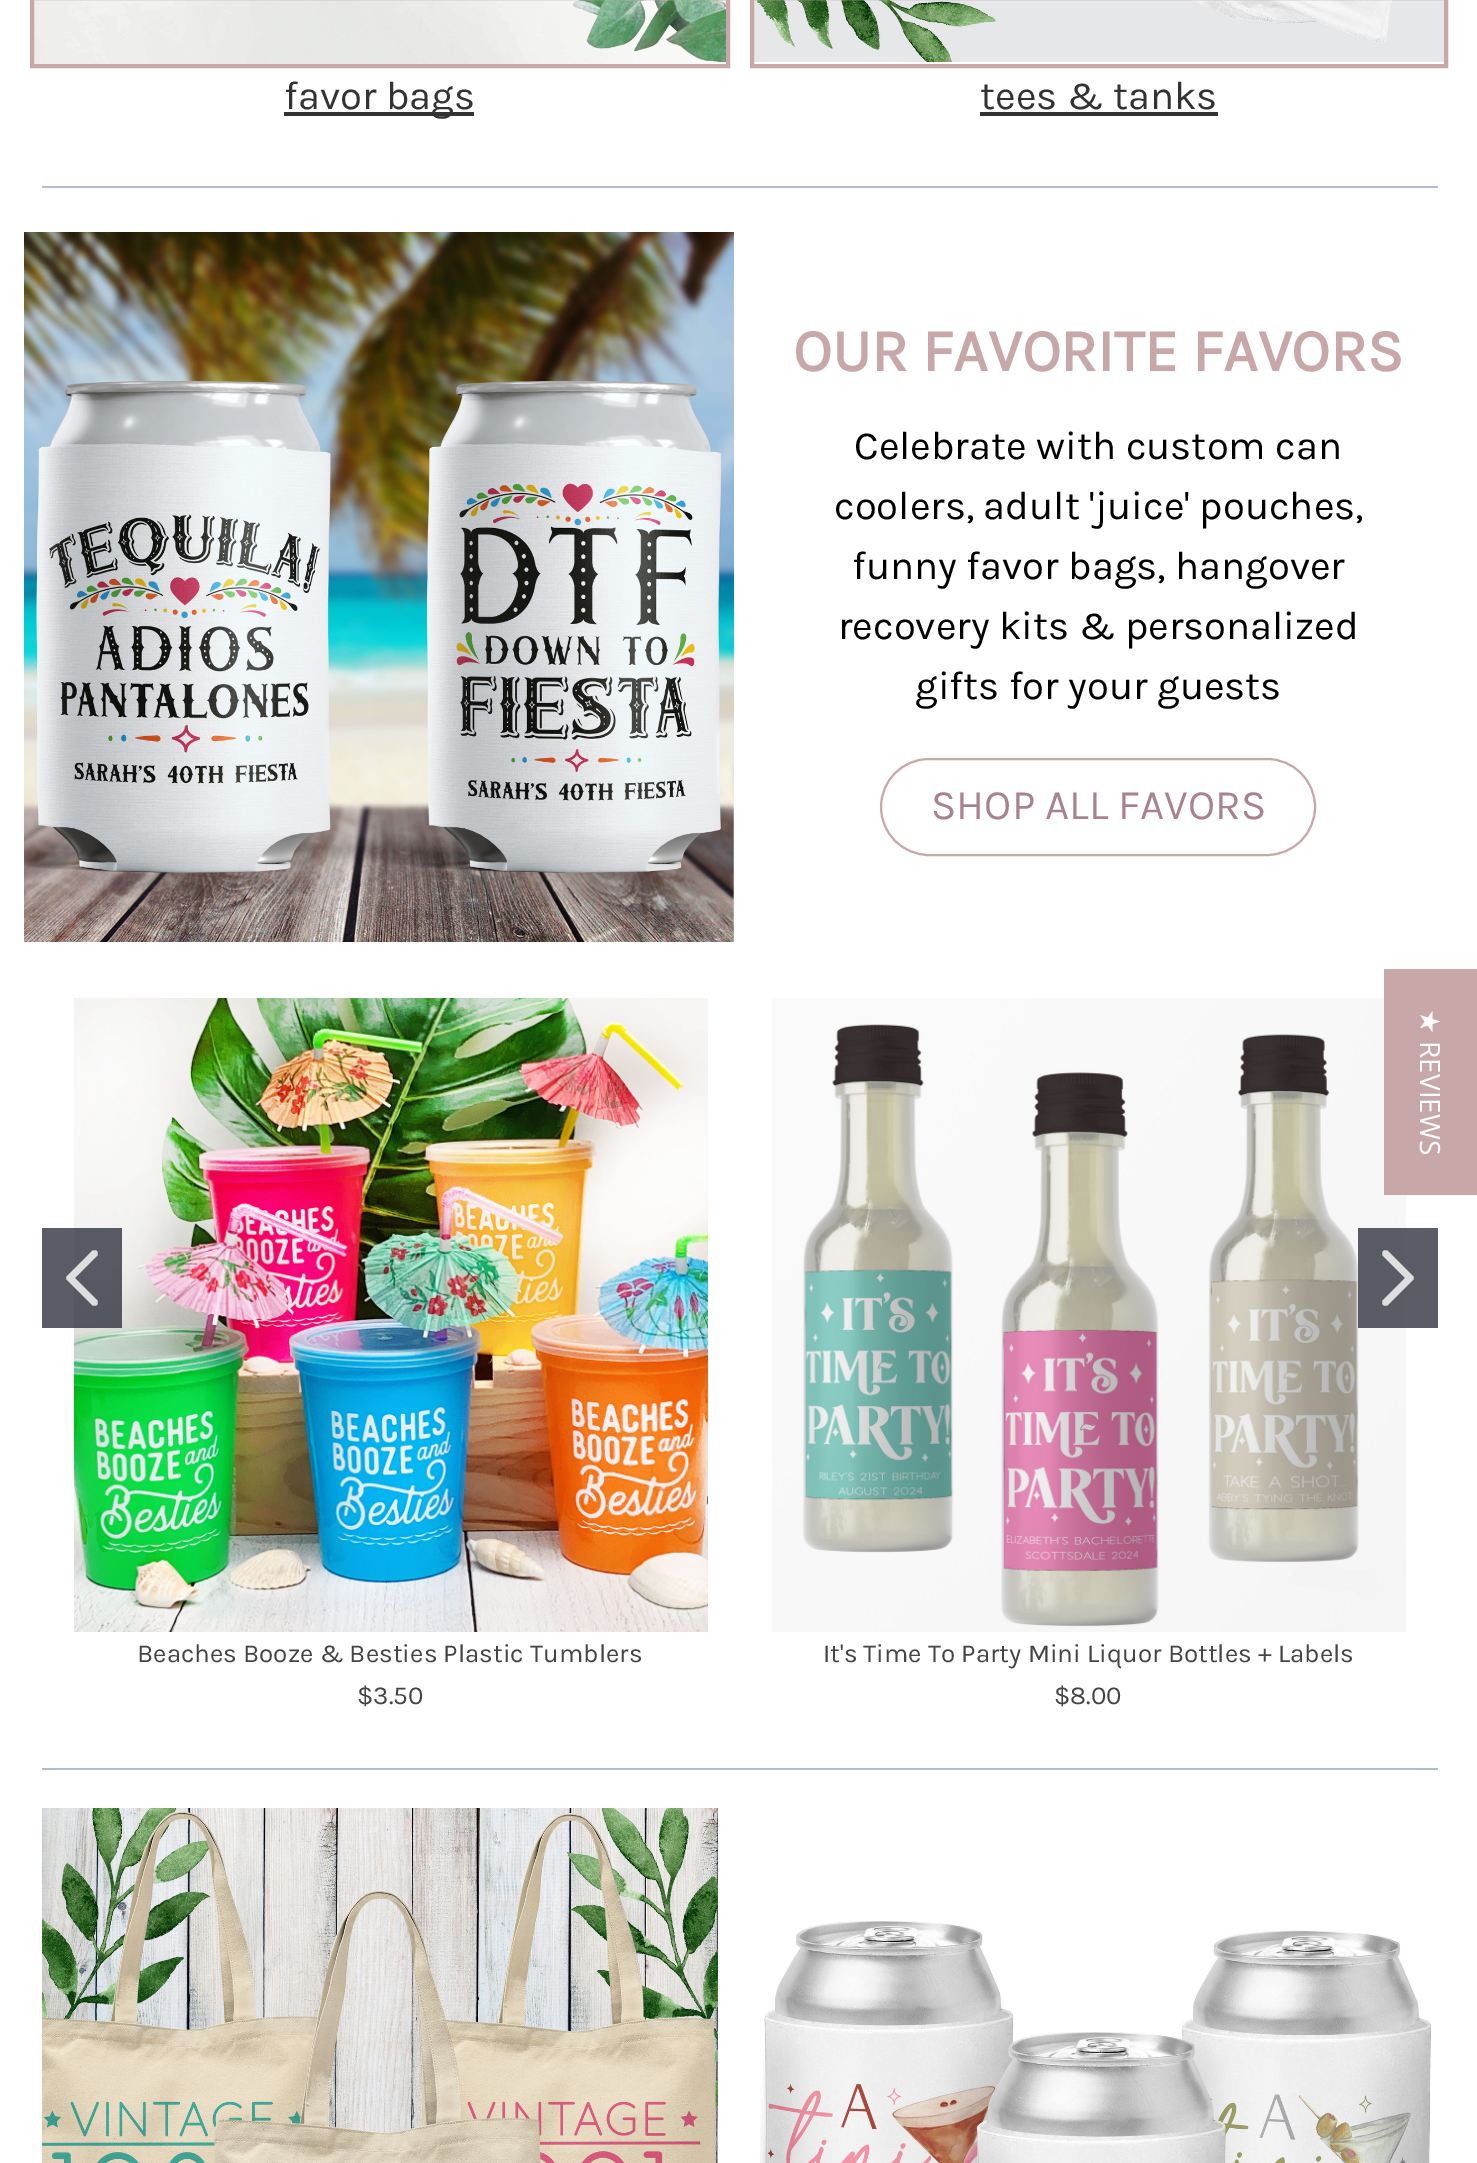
%!PS
<< /PageSize [1477 2163] /PageUsesTransparency true >> setpagedevice
/rgb { 3 { 255 div 3 1 roll } repeat setrgbcolor } def
/font { [ exch dup neg 0 0 3 -1 roll 0 0 ] selectfont } def
/text { moveto show } def
/alpha { dup .setfillconstantalpha .setstrokeconstantalpha } def
/roundrect { 5 dict begin { /r /h /w /y /x } { exch def } forall
  x r add y moveto x w add y 2 copy h add r arct x w add y h add x 1 index r arct
  x y h add x y r arct x y 2 copy exch w add exch r arct closepath end } def
/picture { 5 dict begin { /h /w /y /x /name } { exch def } forall
  gsave x y translate w h scale
  w h 8 [w 0 0 h 0 0] name (r) file false 3 colorimage grestore end } def
0 .pushpdf14devicefilter
0 2163 translate 1 -1 scale
4 setmiterlimit
255 255 255 rgb
0 0 1477 2163 rectfill
(img_01.rgb) 34 0 692 64 picture
199 167 168 rgb
4 setlinewidth
32 -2 696 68 rectstroke
51 51 51 rgb
284 112 190 4 rectfill
(img_02.rgb) 754 0 690 62 picture
199 167 168 rgb
752 -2 694 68 rectstroke
51 51 51 rgb
980 112 238 4 rectfill
180 186 209 rgb
42 186 1396 2 rectfill
(img_03.rgb) 24 232 710 710 picture
199 167 168 rgb
2 setlinewidth
881 759 434 96 48 roundrect stroke
(img_04.rgb) 74 998 634 634 picture
0.8 alpha
49 52 64 rgb
42 1228 80 100 rectfill
255 255 255 rgb
97 1251 moveto -2 -1 -4 -1 -5 0 rcurveto -25 25 rlineto -1 1 -1 3 0 4 rcurveto 25 25 rlineto 1 1 3 1 5 0 rcurveto 1 -2 1 -4 0 -5 rcurveto -22 -22 rlineto 22 -22 rlineto 1 -1 1 -3 0 -5 rcurveto closepath fill
1 alpha
(img_05.rgb) 772 998 634 634 picture
0.8 alpha
49 52 64 rgb
1358 1228 80 100 rectfill
1 alpha
222 222 224 rgb
1383 1305 moveto 2 1 4 1 5 0 rcurveto 25 -25 rlineto 1 -1 1 -3 0 -4 rcurveto -25 -25 rlineto -1 -1 -3 -1 -5 0 rcurveto -1 2 -1 4 0 5 rcurveto 22 22 rlineto -22 22 rlineto -1 1 -1 3 0 5 rcurveto closepath fill
180 186 209 rgb
42 1768 1396 2 rectfill
(img_06.rgb) 42 1808 676 355 picture
(img_07.rgb) 760 1921 671 242 picture
199 167 168 rgb
1384 969 93 226 rectfill
/Karla-Regular 40 font
51 51 51 rgb
(favor bags) 284 109 text
(tees & tanks) 980 109 text
/Karla-Bold 60 font
199 167 168 rgb
(OUR FAVORITE FAVORS) 793 371 text
/Karla-Regular 40 font
0 0 0 rgb
(Celebrate with custom can) 854 459 text
(coolers, adult 'juice' pouches,) 834 519 text
(funny favor bags, hangover) 852 579 text
(recovery kits & personalized) 838 639 text
(gifts for your guests) 915 699 text
/Karla-Regular 42 font
168 130 142 rgb
(SHOP ALL FAVORS) 931 819 text
/Karla-Regular 26 font
68 68 68 rgb
(Beaches Booze & Besties Plastic Tumblers) 137 1662 text
($3.50) 357 1704 text
(It's Time To Party Mini Liquor Bottles + Labels) 823 1662 text
($8.00) 1054 1704 text
/DejaVuSans-Regular 28 font
254 254 254 rgb
gsave 1420 1009 translate 90 rotate 0 0 moveto (★) show grestore
/OpenSans-Regular 28 font
gsave 1420 1041 translate 90 rotate 0 0 moveto (REVIEWS) show grestore
.poppdf14devicefilter showpage
